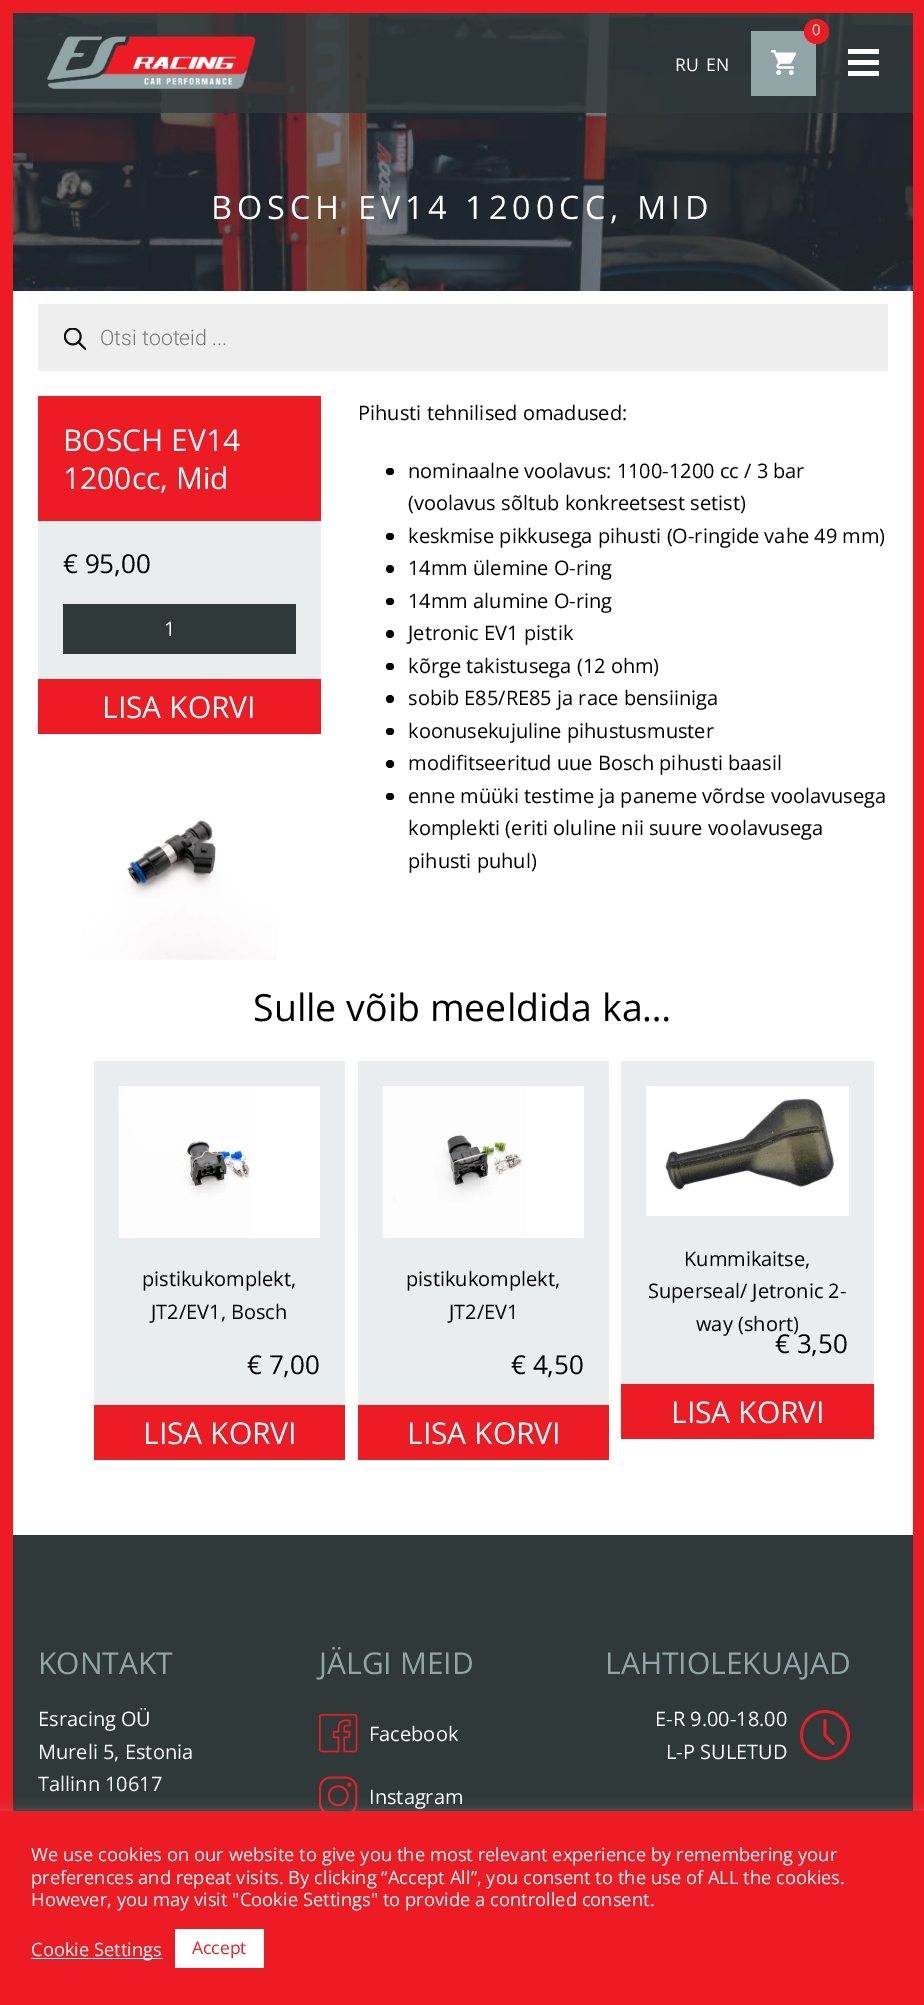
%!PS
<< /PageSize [924 2005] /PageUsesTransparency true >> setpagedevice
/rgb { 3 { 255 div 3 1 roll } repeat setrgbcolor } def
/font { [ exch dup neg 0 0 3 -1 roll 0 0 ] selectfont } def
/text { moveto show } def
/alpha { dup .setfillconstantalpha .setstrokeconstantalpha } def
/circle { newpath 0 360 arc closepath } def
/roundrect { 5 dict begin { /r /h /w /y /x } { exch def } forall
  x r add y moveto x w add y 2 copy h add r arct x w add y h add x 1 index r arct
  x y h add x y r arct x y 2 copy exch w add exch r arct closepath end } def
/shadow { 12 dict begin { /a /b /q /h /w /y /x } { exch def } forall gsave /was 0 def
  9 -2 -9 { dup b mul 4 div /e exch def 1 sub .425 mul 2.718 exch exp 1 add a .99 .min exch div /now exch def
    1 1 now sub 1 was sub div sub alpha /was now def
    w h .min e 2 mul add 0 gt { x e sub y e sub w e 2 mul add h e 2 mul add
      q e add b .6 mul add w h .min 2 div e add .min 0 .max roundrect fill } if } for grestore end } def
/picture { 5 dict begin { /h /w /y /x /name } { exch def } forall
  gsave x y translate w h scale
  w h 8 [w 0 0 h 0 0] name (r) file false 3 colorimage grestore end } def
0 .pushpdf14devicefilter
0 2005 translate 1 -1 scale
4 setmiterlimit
255 255 255 rgb
0 0 924 2005 rectfill
(img_01.rgb) 13 13 900 278 picture
237 28 36 rgb
0 0 13 1811 rectfill
13 0 900 13 rectfill
913 0 11 1811 rectfill
0.8 alpha
47 57 58 rgb
13 13 900 100 rectfill
1 alpha
(img_02.rgb) 46 36 211 54 picture
145 165 166 rgb
751 31 65 65 rectfill
237 28 36 rgb
816.5 31.5 12.5 circle fill
(img_03.rgb) 771 50 25 25 picture
255 255 255 rgb
848 49 31 5 rectfill
848 60 31 5 rectfill
848 71 31 5 rectfill
238 238 238 rgb
38 304 850 67 rectfill
(img_04.rgb) 64 328 22 22 picture
233 237 237 rgb
38 521 283 158 rectfill
237 28 36 rgb
38 396 283 125 rectfill
47 57 58 rgb
63 604 233 50 rectfill
237 28 36 rgb
38 679 283 55 rectfill
(img_05.rgb) 82 820 195 140 picture
0 0 0 rgb
386 468 8 7 3.5 roundrect fill
386 533 8 7 3.5 roundrect fill
390 569 4 circle fill
386 598 8 7 3.5 roundrect fill
390 634 4 circle fill
386 663 8 7 3.5 roundrect fill
390 699 4 circle fill
386 728 8 7 3.5 roundrect fill
390 764 4 circle fill
386 793 8 7 3.5 roundrect fill
233 237 237 rgb
94 1061 251 344 rectfill
255 255 255 rgb
119 1086 201 152 rectfill
(img_06.rgb) 118 1086 134 151 picture
237 28 36 rgb
94 1405 251 55 rectfill
233 237 237 rgb
358 1061 251 344 rectfill
255 255 255 rgb
383 1086 201 152 rectfill
(img_07.rgb) 382 1086 143 151 picture
237 28 36 rgb
358 1405 251 55 rectfill
233 237 237 rgb
621 1061 253 323 rectfill
255 255 255 rgb
646 1086 203 130 rectfill
(img_08.rgb) 665 1098 170 92 picture
237 28 36 rgb
621 1384 253 55 rectfill
47 57 58 rgb
13 1535 900 276 rectfill
(img_09.rgb) 319 1714 39 39 picture
(img_10.rgb) 319 1776 39 35 picture
(img_11.rgb) 800 1710 50 50 picture
172 171 171 rgb
0 1810 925 194 0 6 0.3 shadow
237 28 36 rgb
0 1811 924 194 rectfill
255 255 255 rgb
31 1958 132 1 rectfill
175 1929 89 39 rectfill
/OpenSans-Regular 15 font
(0) 812 35 text
/OpenSans-Regular 17.5 font
(RU) 675 71 text
(EN) 706 71 text
/OpenSans-Regular 32.4 font
211 219 moveto 5 0 (BOSCH EV14 1200CC, MID) ashow
/Roboto-Light 21.25 font
119 119 119 rgb
(Otsi tooteid ...) 100 345 text
/OpenSans-Regular 30 font
255 255 255 rgb
(BOSCH EV14) 63 451 text
(1200cc, Mid) 63 489 text
/OpenSans-Regular 26 font
0 0 0 rgb
(€ 95,00) 63 573 text
/OpenSans-Regular 20 font
255 255 255 rgb
(1) 164 636 text
/OpenSans-Regular 30 font
(LISA KORVI) 102 718 text
/OpenSans-Regular 20 font
0 0 0 rgb
(Pihusti tehnilised omadused:) 358 420 text
(nominaalne voolavus: 1100-1200 cc / 3 bar) 408 478 text
(\(voolavus sõltub konkreetsest setist\)) 408 510 text
(keskmise pikkusega pihusti \(O-ringide vahe 49 mm\)) 408 543 text
(14mm ülemine O-ring) 408 575 text
(14mm alumine O-ring) 408 608 text
(Jetronic EV1 pistik) 408 640 text
(kõrge takistusega \(12 ohm\)) 408 673 text
(sobib E85/RE85 ja race bensiiniga) 408 705 text
(koonusekujuline pihustusmuster) 408 738 text
(modifitseeritud uue Bosch pihusti baasil) 408 770 text
(enne müüki testime ja paneme võrdse voolavusega) 408 803 text
(komplekti \(eriti oluline nii suure voolavusega) 408 835 text
(pihusti puhul\)) 408 868 text
/OpenSans-Regular 37.5 font
(Sulle võib meeldida ka…) 253 1021 text
/OpenSans-Regular 20 font
(pistikukomplekt,) 142 1286 text
(JT2/EV1, Bosch) 151 1319 text
/OpenSans-Regular 26 font
(€ 7,00) 247 1374 text
/OpenSans-Regular 30 font
255 255 255 rgb
(LISA KORVI) 143 1444 text
/OpenSans-Regular 20 font
0 0 0 rgb
(pistikukomplekt,) 406 1286 text
(JT2/EV1) 449 1319 text
/OpenSans-Regular 26 font
(€ 4,50) 511 1374 text
/OpenSans-Regular 30 font
255 255 255 rgb
(LISA KORVI) 407 1444 text
/OpenSans-Regular 20 font
0 0 0 rgb
(Kummikaitse,) 684 1266 text
(Superseal/ Jetronic 2-) 648 1298 text
(way \(short\)) 696 1331 text
/OpenSans-Regular 26 font
(€ 3,50) 775 1353 text
/OpenSans-Regular 30 font
255 255 255 rgb
(LISA KORVI) 671 1423 text
145 165 166 rgb
(KONTAKT) 38 1674 text
/OpenSans-Regular 20 font
255 255 255 rgb
(Esracing OÜ) 38 1726 text
(Mureli 5, Estonia) 38 1759 text
(Tallinn 10617) 38 1791 text
/OpenSans-Regular 30 font
145 165 166 rgb
(JÄLGI MEID) 319 1674 text
/OpenSans-Regular 20 font
255 255 255 rgb
(Facebook) 369 1741 text
(Instagram) 369 1804 text
/OpenSans-Regular 30 font
145 165 166 rgb
(LAHTIOLEKUAJAD) 605 1674 text
/OpenSans-Regular 20 font
255 255 255 rgb
(E-R 9.00-18.00) 655 1726 text
(L-P SULETUD) 666 1759 text
/OpenSans-Regular 18.35 font
(We use cookies on our website to give you the most relevant experience by remembering your) 31 1861 text
(preferences and repeat visits. By clicking “Accept All”, you consent to the use of ALL the cookies.) 31 1884 text
(However, you may visit "Cookie Settings" to provide a controlled consent.) 31 1906 text
(Cookie Settings) 31 1956 text
/OpenSans-Regular 17.5 font
237 28 36 rgb
(Accept) 192 1954 text
.poppdf14devicefilter showpage
